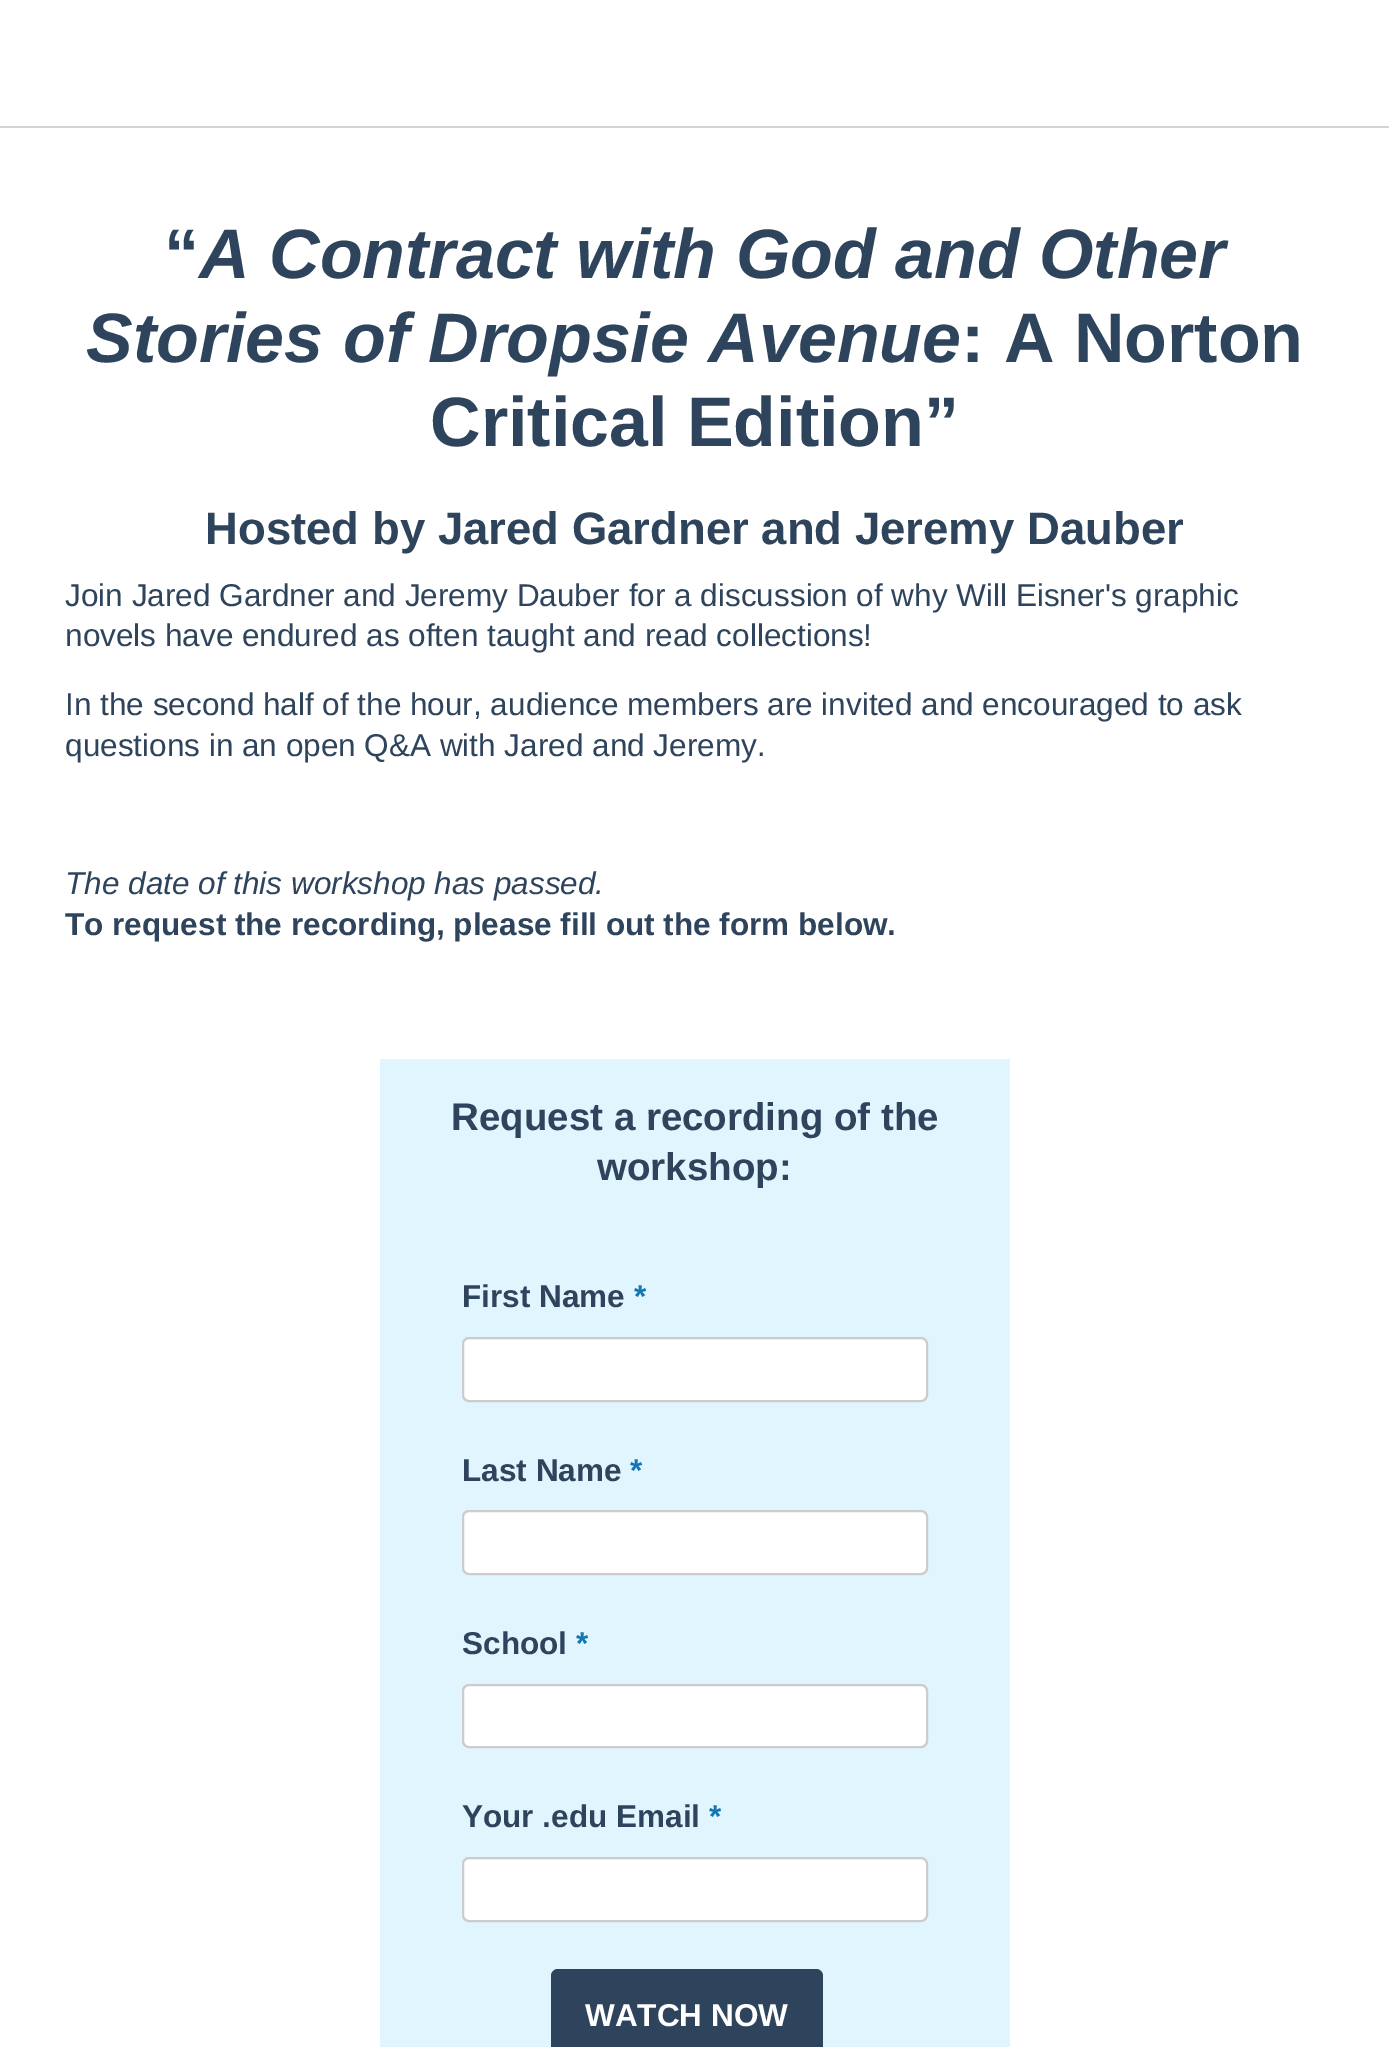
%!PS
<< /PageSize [1389 2047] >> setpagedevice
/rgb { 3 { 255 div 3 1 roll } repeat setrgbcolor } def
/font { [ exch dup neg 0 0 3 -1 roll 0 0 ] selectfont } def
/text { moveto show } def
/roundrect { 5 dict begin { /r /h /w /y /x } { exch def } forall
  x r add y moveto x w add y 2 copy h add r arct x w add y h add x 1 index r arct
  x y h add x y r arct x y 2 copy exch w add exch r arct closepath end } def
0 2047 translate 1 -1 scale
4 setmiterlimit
255 255 255 rgb
0 0 1389 2047 rectfill
211 211 211 rgb
0 126 1389 2 rectfill
225 245 254 rgb
380 1059 630 988 rectfill
255 255 255 rgb
463 1338 464 63 6 roundrect gsave fill grestore
204 204 204 rgb
2 setlinewidth
stroke
255 255 255 rgb
463 1511 464 63 6 roundrect gsave fill grestore
204 204 204 rgb
stroke
255 255 255 rgb
463 1685 464 62 6 roundrect gsave fill grestore
204 204 204 rgb
stroke
255 255 255 rgb
463 1858 464 63 6 roundrect gsave fill grestore
204 204 204 rgb
stroke
46 68 92 rgb
551 1969 272 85 7 roundrect fill
/LiberationSans-Bold 70 font
(“) 164 278 text
/LiberationSans-BoldItalic 70 font
(A Contract with God and Other) 199 278 text
(Stories of Dropsie Avenue) 86 362 text
/LiberationSans-Bold 70 font
(: A Norton) 961 362 text
(Critical Edition”) 430 446 text
/LiberationSans-Bold 45.5 font
(Hosted by Jared Gardner and Jeremy Dauber) 205 544 text
/LiberationSans-Regular 31.5 font
(Join Jared Gardner and Jeremy Dauber for a discussion of why Will Eisner's graphic) 65 606 text
(novels have endured as often taught and read collections!) 65 646 text
(In the second half of the hour, audience members are invited and encouraged to ask) 65 715 text
(questions in an open Q&A with Jared and Jeremy.) 65 756 text
/LiberationSans-Italic 31.5 font
(The date of this workshop has passed.) 65 894 text
/LiberationSans-Bold 31.5 font
(To request the recording, please fill out the form below.) 65 935 text
/LiberationSans-Bold 38.5 font
(Request a recording of the) 451 1130 text
(workshop:) 597 1180 text
/LiberationSans-Bold 31.5 font
(First Name) 462 1307 text
18 118 181 rgb
(*) 634 1307 text
46 68 92 rgb
(Last Name) 462 1481 text
18 118 181 rgb
(*) 630 1481 text
46 68 92 rgb
(School) 462 1654 text
18 118 181 rgb
(*) 576 1654 text
46 68 92 rgb
(Your .edu Email) 462 1827 text
18 118 181 rgb
(*) 709 1827 text
255 255 255 rgb
(WATCH NOW) 585 2026 text
showpage
